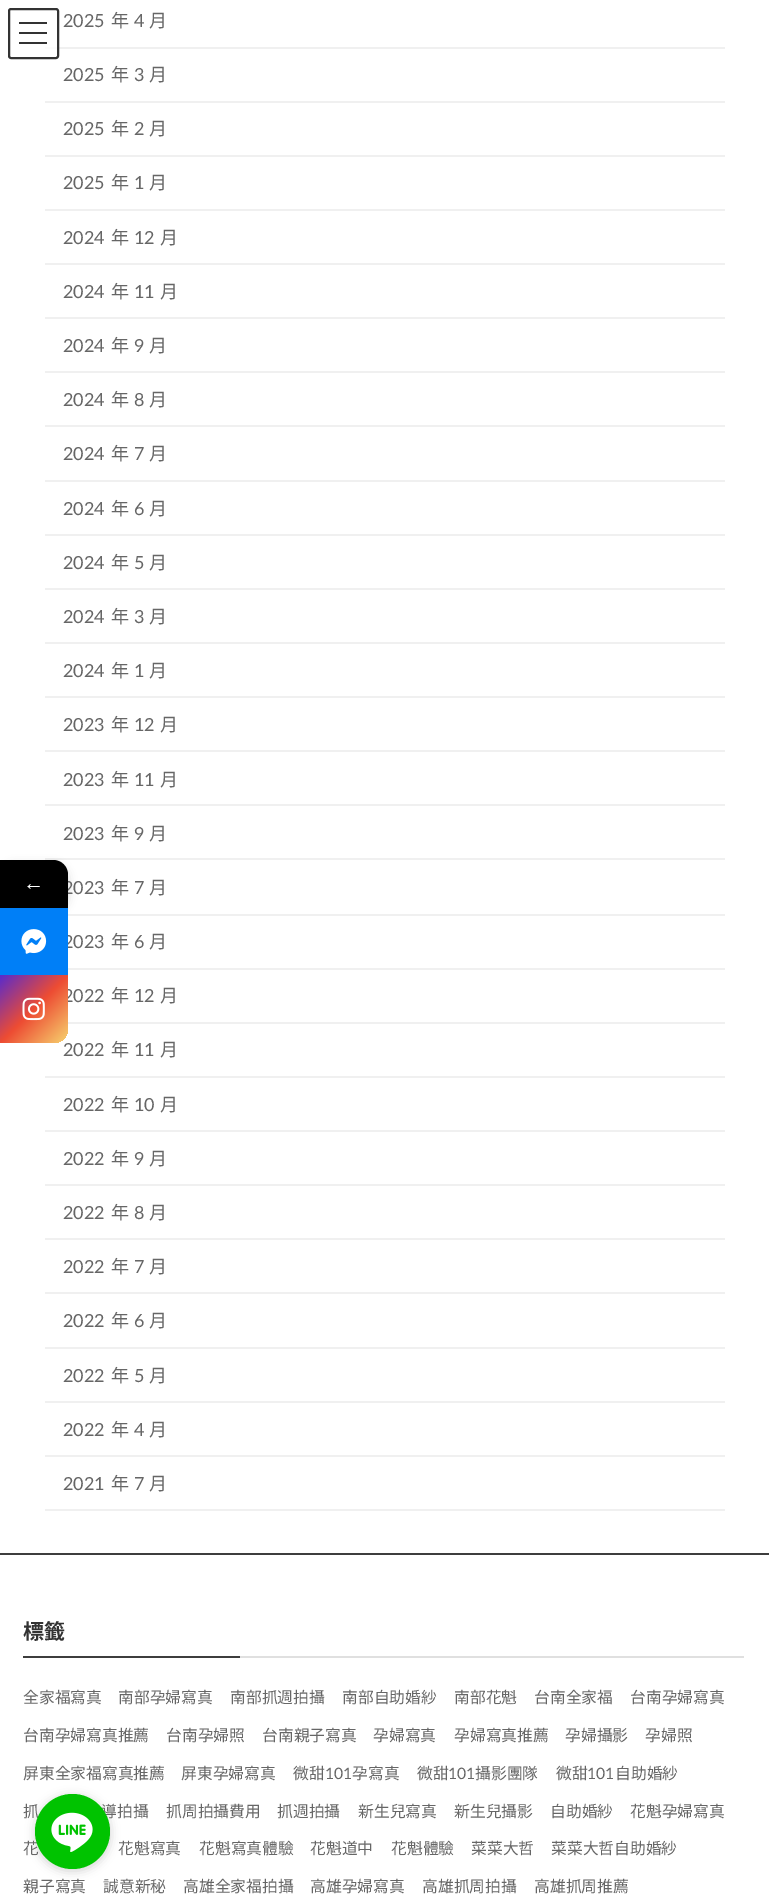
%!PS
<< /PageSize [769 1900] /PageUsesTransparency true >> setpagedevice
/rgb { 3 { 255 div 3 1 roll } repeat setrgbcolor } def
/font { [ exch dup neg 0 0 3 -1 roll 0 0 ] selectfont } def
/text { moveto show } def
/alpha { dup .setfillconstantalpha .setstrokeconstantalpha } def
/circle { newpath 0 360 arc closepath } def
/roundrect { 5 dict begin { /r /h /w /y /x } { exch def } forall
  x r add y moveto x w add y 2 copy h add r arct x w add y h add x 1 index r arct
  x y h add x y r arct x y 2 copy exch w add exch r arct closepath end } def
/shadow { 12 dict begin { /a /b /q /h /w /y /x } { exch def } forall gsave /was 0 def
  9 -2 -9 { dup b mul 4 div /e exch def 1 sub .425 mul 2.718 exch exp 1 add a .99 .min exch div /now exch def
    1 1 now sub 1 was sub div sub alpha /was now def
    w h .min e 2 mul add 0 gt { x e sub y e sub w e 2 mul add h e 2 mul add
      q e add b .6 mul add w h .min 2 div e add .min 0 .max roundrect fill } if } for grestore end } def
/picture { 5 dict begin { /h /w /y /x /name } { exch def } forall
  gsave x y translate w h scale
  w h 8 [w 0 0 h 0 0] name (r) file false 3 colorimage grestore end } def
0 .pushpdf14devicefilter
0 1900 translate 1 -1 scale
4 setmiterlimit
255 255 255 rgb
0 0 769 1900 rectfill
240 240 240 rgb
45 47 680 2 rectfill
0.8 alpha
255 255 255 rgb
8 8 51 51 3 roundrect fill
1 alpha
51 51 51 rgb
19 22 28 2 rectfill
19 32 28 2 rectfill
19 42 28 2 rectfill
2 setlinewidth
9 9 49 49 2 roundrect stroke
240 240 240 rgb
45 101 680 2 rectfill
45 155 680 2 rectfill
45 209 680 2 rectfill
45 263 680 2 rectfill
45 317 680 2 rectfill
45 371 680 2 rectfill
45 425 680 2 rectfill
45 480 680 2 rectfill
45 534 680 2 rectfill
45 588 680 2 rectfill
45 642 680 2 rectfill
45 696 680 2 rectfill
45 750 680 2 rectfill
45 804 680 2 rectfill
45 858 680 2 rectfill
68 914 657 2 rectfill
68 968 657 2 rectfill
68 1022 657 2 rectfill
45 1076 680 2 rectfill
45 1130 680 2 rectfill
45 1184 680 2 rectfill
45 1238 680 2 rectfill
45 1292 680 2 rectfill
45 1347 680 2 rectfill
45 1401 680 2 rectfill
45 1455 680 2 rectfill
45 1509 680 2 rectfill
0 0 0 rgb
0 864 68 48 15 4.5 0.16 shadow
61 61 61 rgb
0 1553 769 2 rectfill
224 224 224 rgb
240 1656 504 2 rectfill
61 61 61 rgb
23 1656 217 2 rectfill
136 136 136 rgb
35 1796 75 75 37.5 5 0.4 shadow
/Lato-Regular 18 font
102 102 102 rgb
(2025) 63 27 text
/NotoSansJP-Regular 18 font
(年) 111 27 text
/Lato-Regular 18 font
(4) 134 27 text
/NotoSansJP-Regular 18 font
(月) 149 27 text
/Lato-Regular 18 font
(2025) 63 81 text
/NotoSansJP-Regular 18 font
(年) 111 81 text
/Lato-Regular 18 font
(3) 134 81 text
/NotoSansJP-Regular 18 font
(月) 149 81 text
/Lato-Regular 18 font
(2025) 63 135 text
/NotoSansJP-Regular 18 font
(年) 111 135 text
/Lato-Regular 18 font
(2) 134 135 text
/NotoSansJP-Regular 18 font
(月) 149 135 text
/Lato-Regular 18 font
(2025) 63 189 text
/NotoSansJP-Regular 18 font
(年) 111 189 text
/Lato-Regular 18 font
(1) 134 189 text
/NotoSansJP-Regular 18 font
(月) 149 189 text
/Lato-Regular 18 font
(2024) 63 244 text
/NotoSansJP-Regular 18 font
(年) 111 244 text
/Lato-Regular 18 font
(12) 134 244 text
/NotoSansJP-Regular 18 font
(月) 160 244 text
/Lato-Regular 18 font
(2024) 63 298 text
/NotoSansJP-Regular 18 font
(年) 111 298 text
/Lato-Regular 18 font
(11) 134 298 text
/NotoSansJP-Regular 18 font
(月) 160 298 text
/Lato-Regular 18 font
(2024) 63 352 text
/NotoSansJP-Regular 18 font
(年) 111 352 text
/Lato-Regular 18 font
(9) 134 352 text
/NotoSansJP-Regular 18 font
(月) 149 352 text
/Lato-Regular 18 font
(2024) 63 406 text
/NotoSansJP-Regular 18 font
(年) 111 406 text
/Lato-Regular 18 font
(8) 134 406 text
/NotoSansJP-Regular 18 font
(月) 149 406 text
/Lato-Regular 18 font
(2024) 63 460 text
/NotoSansJP-Regular 18 font
(年) 111 460 text
/Lato-Regular 18 font
(7) 134 460 text
/NotoSansJP-Regular 18 font
(月) 149 460 text
/Lato-Regular 18 font
(2024) 63 515 text
/NotoSansJP-Regular 18 font
(年) 111 515 text
/Lato-Regular 18 font
(6) 134 515 text
/NotoSansJP-Regular 18 font
(月) 149 515 text
/Lato-Regular 18 font
(2024) 63 569 text
/NotoSansJP-Regular 18 font
(年) 111 569 text
/Lato-Regular 18 font
(5) 134 569 text
/NotoSansJP-Regular 18 font
(月) 149 569 text
/Lato-Regular 18 font
(2024) 63 623 text
/NotoSansJP-Regular 18 font
(年) 111 623 text
/Lato-Regular 18 font
(3) 134 623 text
/NotoSansJP-Regular 18 font
(月) 149 623 text
/Lato-Regular 18 font
(2024) 63 677 text
/NotoSansJP-Regular 18 font
(年) 111 677 text
/Lato-Regular 18 font
(1) 134 677 text
/NotoSansJP-Regular 18 font
(月) 149 677 text
/Lato-Regular 18 font
(2023) 63 731 text
/NotoSansJP-Regular 18 font
(年) 111 731 text
/Lato-Regular 18 font
(12) 134 731 text
/NotoSansJP-Regular 18 font
(月) 160 731 text
/Lato-Regular 18 font
(2023) 63 786 text
/NotoSansJP-Regular 18 font
(年) 111 786 text
/Lato-Regular 18 font
(11) 134 786 text
/NotoSansJP-Regular 18 font
(月) 160 786 text
/Lato-Regular 18 font
(2023) 63 840 text
/NotoSansJP-Regular 18 font
(年) 111 840 text
/Lato-Regular 18 font
(9) 134 840 text
/NotoSansJP-Regular 18 font
(月) 149 840 text
/Lato-Regular 18 font
(2023) 63 894 text
/NotoSansJP-Regular 18 font
(年) 111 894 text
/Lato-Regular 18 font
(7) 134 894 text
/NotoSansJP-Regular 18 font
(月) 149 894 text
/Lato-Regular 18 font
(2023) 63 948 text
/NotoSansJP-Regular 18 font
(年) 111 948 text
/Lato-Regular 18 font
(6) 134 948 text
/NotoSansJP-Regular 18 font
(月) 149 948 text
/Lato-Regular 18 font
(2022) 63 1002 text
/NotoSansJP-Regular 18 font
(年) 111 1002 text
/Lato-Regular 18 font
(12) 134 1002 text
/NotoSansJP-Regular 18 font
(月) 160 1002 text
/Lato-Regular 18 font
(2022) 63 1056 text
/NotoSansJP-Regular 18 font
(年) 111 1056 text
/Lato-Regular 18 font
(11) 134 1056 text
/NotoSansJP-Regular 18 font
(月) 160 1056 text
/Lato-Regular 18 font
(2022) 63 1111 text
/NotoSansJP-Regular 18 font
(年) 111 1111 text
/Lato-Regular 18 font
(10) 134 1111 text
/NotoSansJP-Regular 18 font
(月) 160 1111 text
/Lato-Regular 18 font
(2022) 63 1165 text
/NotoSansJP-Regular 18 font
(年) 111 1165 text
/Lato-Regular 18 font
(9) 134 1165 text
/NotoSansJP-Regular 18 font
(月) 149 1165 text
/Lato-Regular 18 font
(2022) 63 1219 text
/NotoSansJP-Regular 18 font
(年) 111 1219 text
/Lato-Regular 18 font
(8) 134 1219 text
/NotoSansJP-Regular 18 font
(月) 149 1219 text
/Lato-Regular 18 font
(2022) 63 1273 text
/NotoSansJP-Regular 18 font
(年) 111 1273 text
/Lato-Regular 18 font
(7) 134 1273 text
/NotoSansJP-Regular 18 font
(月) 149 1273 text
/Lato-Regular 18 font
(2022) 63 1327 text
/NotoSansJP-Regular 18 font
(年) 111 1327 text
/Lato-Regular 18 font
(6) 134 1327 text
/NotoSansJP-Regular 18 font
(月) 149 1327 text
/Lato-Regular 18 font
(2022) 63 1382 text
/NotoSansJP-Regular 18 font
(年) 111 1382 text
/Lato-Regular 18 font
(5) 134 1382 text
/NotoSansJP-Regular 18 font
(月) 149 1382 text
/Lato-Regular 18 font
(2022) 63 1436 text
/NotoSansJP-Regular 18 font
(年) 111 1436 text
/Lato-Regular 18 font
(4) 134 1436 text
/NotoSansJP-Regular 18 font
(月) 149 1436 text
/Lato-Regular 18 font
(2021) 63 1490 text
/NotoSansJP-Regular 18 font
(年) 111 1490 text
/Lato-Regular 18 font
(7) 134 1490 text
/NotoSansJP-Regular 18 font
(月) 149 1490 text
0 0 0 rgb
0 860 moveto 53 0 rlineto 8.5 0 15 6.5 15 15 rcurveto 0 33 rlineto -68 0 rlineto closepath fill
/LiberationSerif-Regular 21 font
255 255 255 rgb
(←) 23 890 text
0 127 247 rgb
0 908 68 67 rectfill
(img_01.rgb) 21 929 26 25 picture
gsave 0 975 moveto 68 0 rlineto 0 53 rlineto 0 8.5 -6.5 15 -15 15 rcurveto -53 0 rlineto closepath clip newpath
<< /ShadingType 2 /ColorSpace /DeviceRGB /Coords [0 975 68 1043] /Extend [true true] /Function << /FunctionType 3 /Domain [0 1] /Functions [<< /FunctionType 2 /Domain [0 1] /C0 [0.345 0.169 0.804] /C1 [0.929 0.298 0.2] /N 1 >> << /FunctionType 2 /Domain [0 1] /C0 [0.929 0.298 0.2] /C1 [0.969 0.827 0.435] /N 1 >>] /Bounds [0.5] /Encode [0 1 0 1] >> >> shfill grestore
(img_02.rgb) 22 997 23 24 picture
/NotoSansJP-Bold 21 font
51 51 51 rgb
(標籤) 23 1639 text
/NotoSansJP-Regular 15.75 font
102 102 102 rgb
(全家福寫真) 23 1703 text
(南部孕婦寫真) 118 1703 text
(南部抓週拍攝) 230 1703 text
(南部自助婚紗) 342 1703 text
(南部花魁) 454 1703 text
(台南全家福) 534 1703 text
(台南孕婦寫真) 630 1703 text
(台南孕婦寫真推薦) 23 1741 text
(台南孕婦照) 166 1741 text
(台南親子寫真) 262 1741 text
(孕婦寫真) 373 1741 text
(孕婦寫真推薦) 454 1741 text
(孕婦攝影) 565 1741 text
(孕婦照) 645 1741 text
(屏東全家福寫真推薦) 23 1779 text
(屏東孕婦寫真) 181 1779 text
(微甜) 293 1779 text
/Lato-Regular 15.75 font
(101) 325 1779 text
/NotoSansJP-Regular 15.75 font
(孕寫真) 352 1779 text
(微甜) 417 1779 text
/Lato-Regular 15.75 font
(101) 448 1779 text
/NotoSansJP-Regular 15.75 font
(攝影團隊) 475 1779 text
(微甜) 556 1779 text
/Lato-Regular 15.75 font
(101) 587 1779 text
/NotoSansJP-Regular 15.75 font
(自助婚紗) 615 1779 text
(抓) 23 1817 text
(導拍攝) 101 1817 text
(抓周拍攝費用) 166 1817 text
(抓週拍攝) 277 1817 text
(新生兒寫真) 358 1817 text
(新生兒攝影) 454 1817 text
(自助婚紗) 550 1817 text
(花魁孕婦寫真) 630 1817 text
(花) 23 1854 text
(花魁寫真) 118 1854 text
(花魁寫真體驗) 199 1854 text
(花魁道中) 310 1854 text
(花魁體驗) 391 1854 text
(菜菜大哲) 471 1854 text
(菜菜大哲自助婚紗) 551 1854 text
(親子寫真) 23 1892 text
(誠意新秘) 103 1892 text
(高雄全家福拍攝) 183 1892 text
(高雄孕婦寫真) 310 1892 text
(高雄抓周拍攝) 422 1892 text
(高雄抓周推薦) 534 1892 text
0 195 0 rgb
72.5 1831.5 37.5 circle fill
(img_03.rgb) 51 1812 42 40 picture
.poppdf14devicefilter showpage
